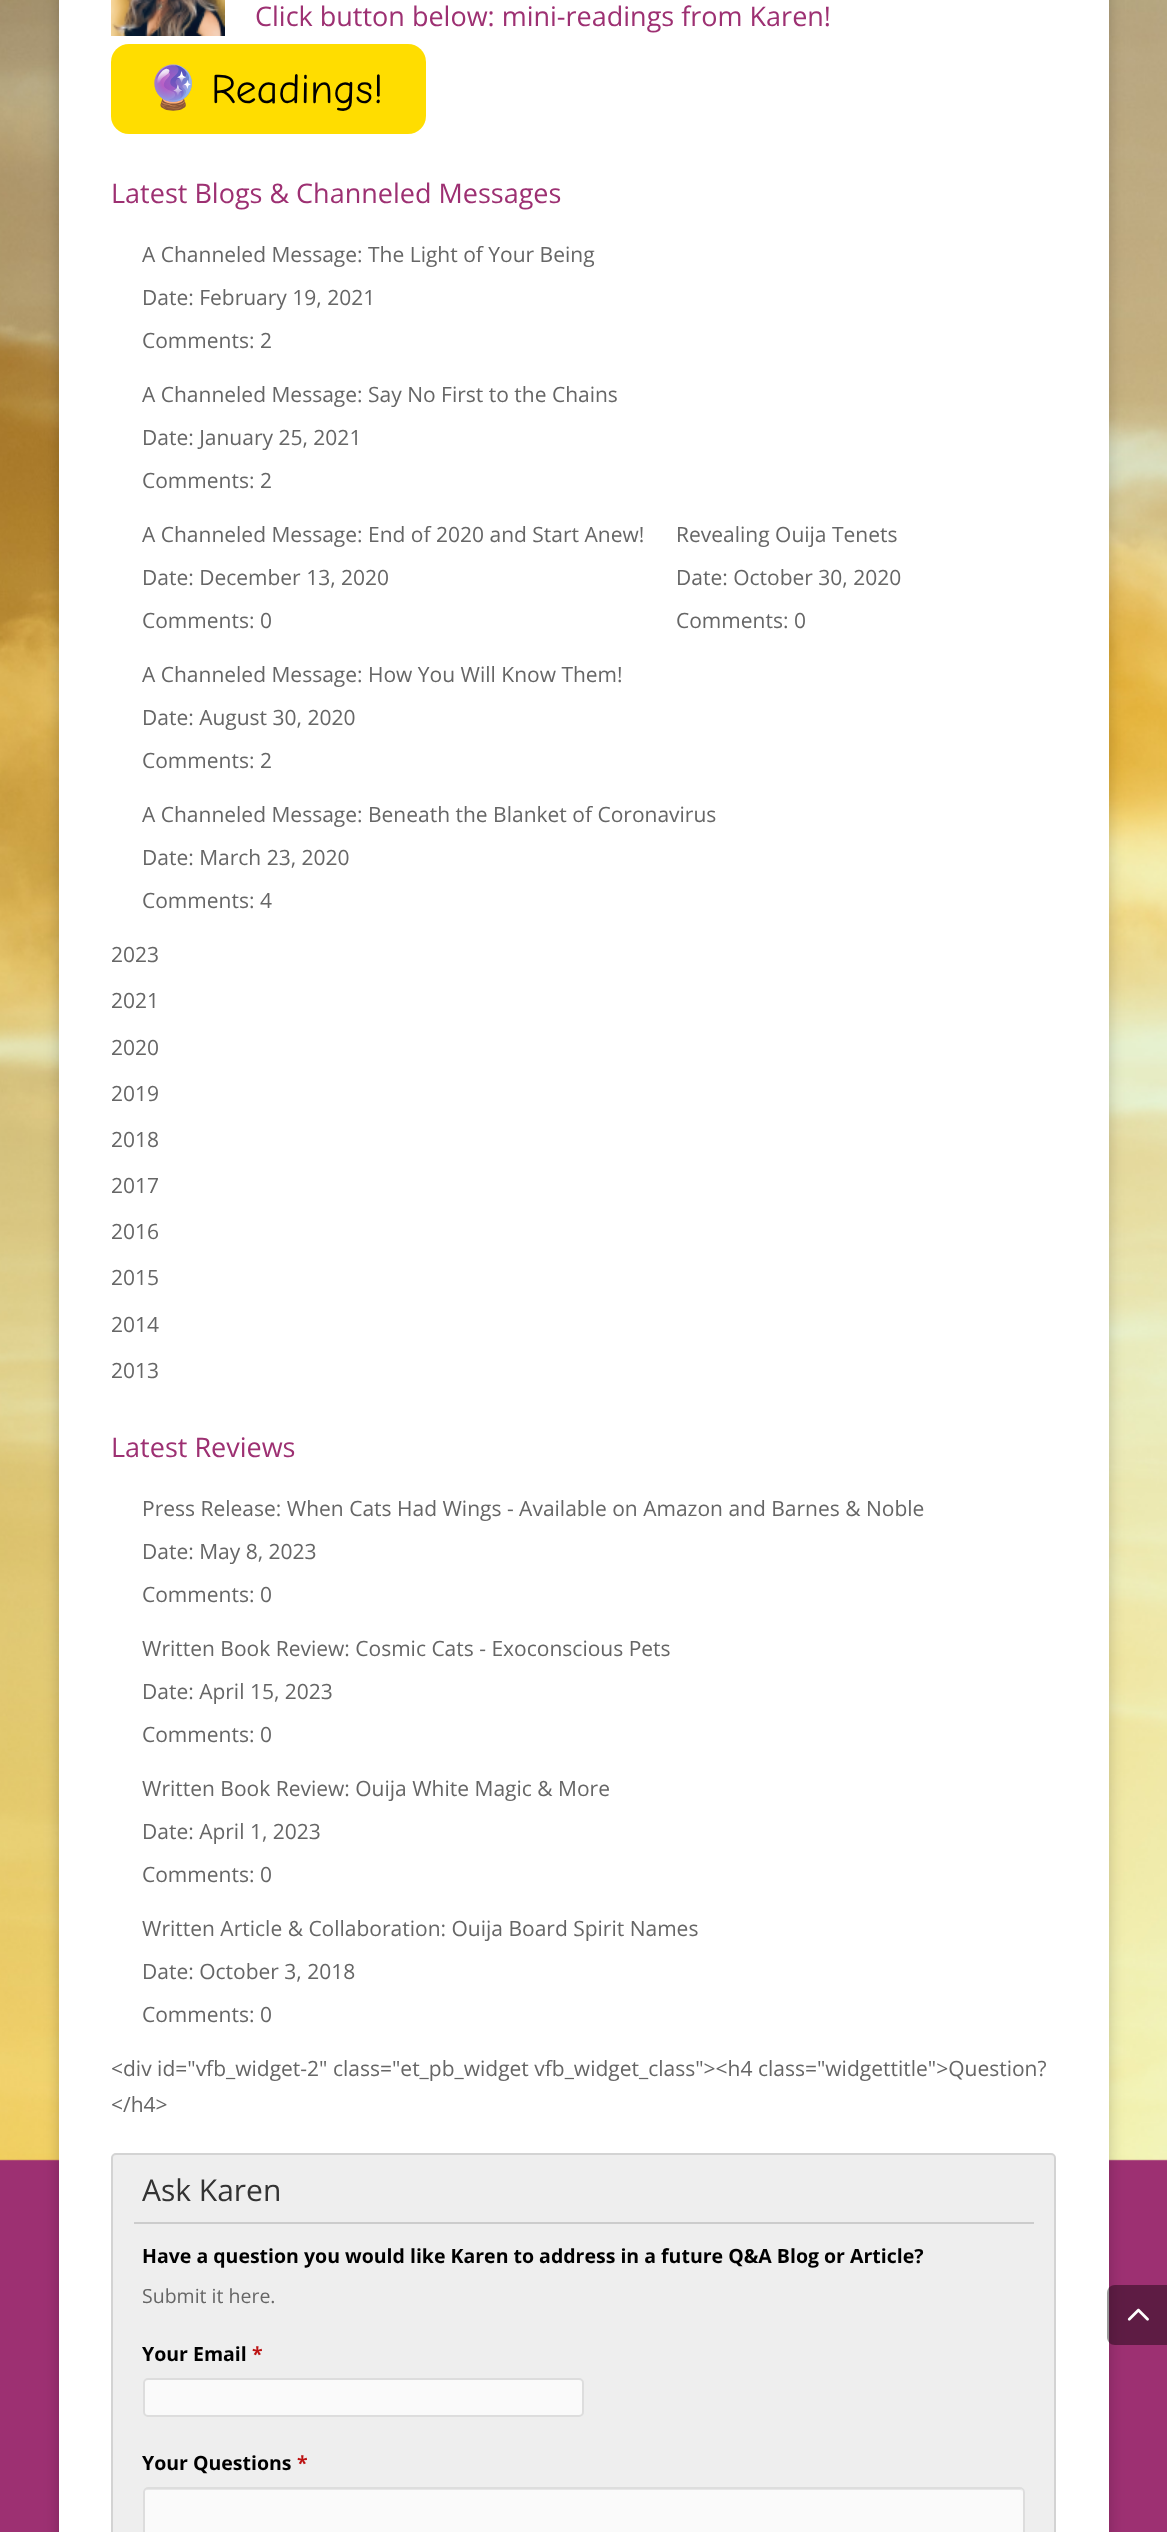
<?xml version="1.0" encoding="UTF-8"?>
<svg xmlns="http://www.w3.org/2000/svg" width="1167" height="2532">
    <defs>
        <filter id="blur1" x="-50%" y="-200%" width="200%" height="500%"><feGaussianBlur stdDeviation="7.5"/></filter>
    </defs>
    <rect width="100%" height="100%" fill="#9D3072"/>
    <image x="0" y="0" width="1167" height="2161" href="img_01.png"/>
    <rect x="59" y="-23" width="1050" height="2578" fill="#000000" fill-opacity="0.2" filter="url(#blur1)"/>
    <rect x="59" y="0" width="1050" height="2532" fill="#FFFFFF"/>
    <image x="111" y="0" width="114" height="36" href="img_02.png"/>
    <text x="255" y="26" font-family="Open Sans" font-size="27" fill="#9D3072">Click button below: mini-readings from Karen!</text>
    <rect x="111" y="44" width="315" height="90" rx="18" fill="#FFDD00"/>
    <text x="147" y="102" font-family="Noto Color Emoji" font-size="42" fill="#000000">🔮</text>
    <text x="211" y="103" font-family="Comic Neue" font-size="42" fill="#000000">Readings!</text>
    <text x="111" y="203" font-family="Open Sans" font-size="27" fill="#9D3072">Latest Blogs &amp; Channeled Messages</text>
    <text x="142" y="262" font-family="Open Sans" font-size="21" fill="#666666">A Channeled Message: The Light of Your Being</text>
    <text x="142" y="305" font-family="Open Sans" font-size="21" fill="#666666">Date: February 19, 2021</text>
    <text x="142" y="348" font-family="Open Sans" font-size="21" fill="#666666">Comments: 2</text>
    <text x="142" y="402" font-family="Open Sans" font-size="21" fill="#666666">A Channeled Message: Say No First to the Chains</text>
    <text x="142" y="445" font-family="Open Sans" font-size="21" fill="#666666">Date: January 25, 2021</text>
    <text x="142" y="488" font-family="Open Sans" font-size="21" fill="#666666">Comments: 2</text>
    <text x="142" y="542" font-family="Open Sans" font-size="21" fill="#666666">A Channeled Message: End of 2020 and Start Anew!</text>
    <text x="142" y="585" font-family="Open Sans" font-size="21" fill="#666666">Date: December 13, 2020</text>
    <text x="142" y="628" font-family="Open Sans" font-size="21" fill="#666666">Comments: 0</text>
    <text x="676" y="542" font-family="Open Sans" font-size="21" fill="#666666">Revealing Ouija Tenets</text>
    <text x="676" y="585" font-family="Open Sans" font-size="21" fill="#666666">Date: October 30, 2020</text>
    <text x="676" y="628" font-family="Open Sans" font-size="21" fill="#666666">Comments: 0</text>
    <text x="142" y="682" font-family="Open Sans" font-size="21" fill="#666666">A Channeled Message: How You Will Know Them!</text>
    <text x="142" y="725" font-family="Open Sans" font-size="21" fill="#666666">Date: August 30, 2020</text>
    <text x="142" y="768" font-family="Open Sans" font-size="21" fill="#666666">Comments: 2</text>
    <text x="142" y="822" font-family="Open Sans" font-size="21" fill="#666666">A Channeled Message: Beneath the Blanket of Coronavirus</text>
    <text x="142" y="865" font-family="Open Sans" font-size="21" fill="#666666">Date: March 23, 2020</text>
    <text x="142" y="908" font-family="Open Sans" font-size="21" fill="#666666">Comments: 4</text>
    <text x="111" y="962" font-family="Open Sans" font-size="21" fill="#666666">2023</text>
    <text x="111" y="1008" font-family="Open Sans" font-size="21" fill="#666666">2021</text>
    <text x="111" y="1055" font-family="Open Sans" font-size="21" fill="#666666">2020</text>
    <text x="111" y="1101" font-family="Open Sans" font-size="21" fill="#666666">2019</text>
    <text x="111" y="1147" font-family="Open Sans" font-size="21" fill="#666666">2018</text>
    <text x="111" y="1193" font-family="Open Sans" font-size="21" fill="#666666">2017</text>
    <text x="111" y="1239" font-family="Open Sans" font-size="21" fill="#666666">2016</text>
    <text x="111" y="1285" font-family="Open Sans" font-size="21" fill="#666666">2015</text>
    <text x="111" y="1332" font-family="Open Sans" font-size="21" fill="#666666">2014</text>
    <text x="111" y="1378" font-family="Open Sans" font-size="21" fill="#666666">2013</text>
    <text x="111" y="1457" font-family="Open Sans" font-size="27" fill="#9D3072">Latest Reviews</text>
    <text x="142" y="1516" font-family="Open Sans" font-size="21" fill="#666666">Press Release: When Cats Had Wings - Available on Amazon and Barnes &amp; Noble</text>
    <text x="142" y="1559" font-family="Open Sans" font-size="21" fill="#666666">Date: May 8, 2023</text>
    <text x="142" y="1602" font-family="Open Sans" font-size="21" fill="#666666">Comments: 0</text>
    <text x="142" y="1656" font-family="Open Sans" font-size="21" fill="#666666">Written Book Review: Cosmic Cats - Exoconscious Pets</text>
    <text x="142" y="1699" font-family="Open Sans" font-size="21" fill="#666666">Date: April 15, 2023</text>
    <text x="142" y="1742" font-family="Open Sans" font-size="21" fill="#666666">Comments: 0</text>
    <text x="142" y="1796" font-family="Open Sans" font-size="21" fill="#666666">Written Book Review: Ouija White Magic &amp; More</text>
    <text x="142" y="1839" font-family="Open Sans" font-size="21" fill="#666666">Date: April 1, 2023</text>
    <text x="142" y="1882" font-family="Open Sans" font-size="21" fill="#666666">Comments: 0</text>
    <text x="142" y="1936" font-family="Open Sans" font-size="21" fill="#666666">Written Article &amp; Collaboration: Ouija Board Spirit Names</text>
    <text x="142" y="1979" font-family="Open Sans" font-size="21" fill="#666666">Date: October 3, 2018</text>
    <text x="142" y="2022" font-family="Open Sans" font-size="21" fill="#666666">Comments: 0</text>
    <text font-family="Open Sans" font-size="21" fill="#666666">
        <tspan x="111" y="2076">&lt;div id="vfb_widget-2" class="et_pb_widget vfb_widget_class"&gt;&lt;h4 class="widgettitle"&gt;Question?</tspan>
        <tspan x="111" y="2112">&lt;/h4&gt;</tspan>
    </text>
    <rect x="112" y="2154" width="943" height="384" rx="4" fill="#EEEEEE" stroke="#D3D3D3" stroke-width="2"/>
    <rect x="134" y="2222" width="900" height="2" fill="#CCCCCC"/>
    <text x="142" y="2201" font-family="Open Sans" font-size="30" fill="#333333">Ask Karen</text>
    <text x="142" y="2263" font-family="Open Sans" font-size="19.5" font-weight="700" fill="#000000">Have a question you would like Karen to address in a future Q&amp;A Blog or Article?</text>
    <text x="142" y="2303" font-family="Open Sans" font-size="19.5" fill="#666666">Submit it here.</text>
    <text x="142" y="2361" font-family="Open Sans" font-size="19.5" font-weight="700" fill="#000000">Your Email</text>
    <text x="252" y="2361" font-family="Open Sans" font-size="19.5" font-weight="700" fill="#BC1212">*</text>
    <rect x="144" y="2379" width="439" height="37" rx="4" fill="#FAFAFA" stroke="#DDDDDD" stroke-width="2"/>
    <text x="142" y="2470" font-family="Open Sans" font-size="19.5" font-weight="700" fill="#000000">Your Questions</text>
    <text x="297" y="2470" font-family="Open Sans" font-size="19.5" font-weight="700" fill="#BC1212">*</text>
    <rect x="143" y="2487" width="882" height="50" rx="5" fill="#FAFAFA"/>
    <path d="M 147 2490 H 1020 C 1022 2490 1023 2491 1023 2493 C 1023 2491 1022 2489 1020 2489 H 147 C 145 2489 144 2491 144 2493 C 144 2491 145 2490 147 2490 Z" fill="#E7E7E7"/>
    <rect x="144" y="2488" width="880" height="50" rx="4" fill="none" stroke="#DDDDDD" stroke-width="2"/>
    <path d="M 1115 2285 H 1167 V 2345 H 1115 C 1110.5 2345 1107 2341.5 1107 2337 V 2293 C 1107 2288.5 1110.5 2285 1115 2285 Z" fill="#000000" fill-opacity="0.4"/>
    <image x="1127" y="2308" width="22" height="13" href="img_03.png"/>
</svg>
